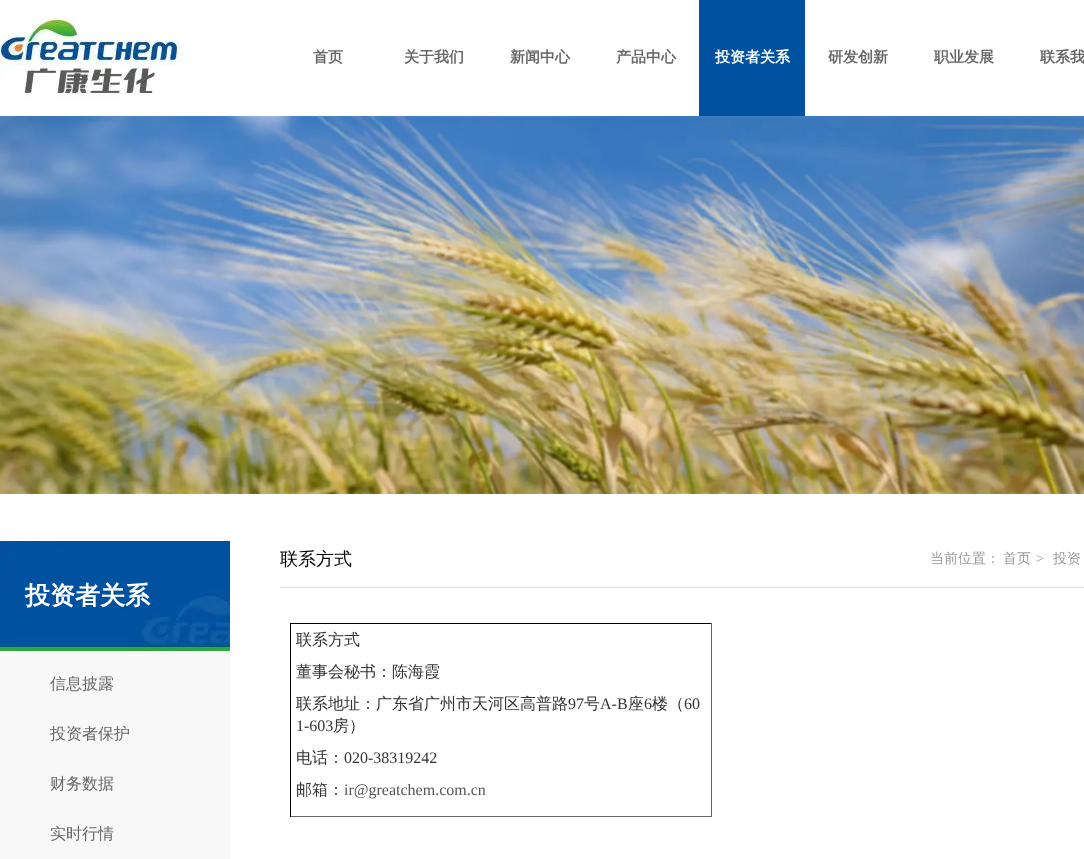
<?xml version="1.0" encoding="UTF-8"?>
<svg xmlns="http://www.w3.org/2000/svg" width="1084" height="859">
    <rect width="100%" height="100%" fill="#FFFFFF"/>
    <image x="0" y="17" width="180" height="80" href="img_01.png"/>
    <text x="313" y="62" font-family="WenQuanYi Zen Hei" font-size="15" font-weight="700" fill="#666666">首页</text>
    <text x="404" y="62" font-family="WenQuanYi Zen Hei" font-size="15" font-weight="700" fill="#666666">关于我们</text>
    <text x="510" y="62" font-family="WenQuanYi Zen Hei" font-size="15" font-weight="700" fill="#666666">新闻中心</text>
    <text x="616" y="62" font-family="WenQuanYi Zen Hei" font-size="15" font-weight="700" fill="#666666">产品中心</text>
    <rect x="699" y="0" width="106" height="116" fill="#00519F"/>
    <text x="715" y="62" font-family="WenQuanYi Zen Hei" font-size="15" font-weight="700" fill="#FFFFFF">投资者关系</text>
    <text x="828" y="62" font-family="WenQuanYi Zen Hei" font-size="15" font-weight="700" fill="#666666">研发创新</text>
    <text x="934" y="62" font-family="WenQuanYi Zen Hei" font-size="15" font-weight="700" fill="#666666">职业发展</text>
    <text x="1040" y="62" font-family="WenQuanYi Zen Hei" font-size="15" font-weight="700" fill="#666666">联系我</text>
    <image x="0" y="116" width="1084" height="378" href="img_02.png"/>
    <image x="0" y="541" width="230" height="110" href="img_03.png"/>
    <text x="25" y="604" font-family="WenQuanYi Zen Hei" font-size="25" font-weight="700" fill="#FFFFFF">投资者关系</text>
    <rect x="0" y="651" width="230" height="208" fill="#F8F8F8"/>
    <text x="50" y="689" font-family="WenQuanYi Zen Hei" font-size="16" font-weight="500" fill="#666666">信息披露</text>
    <text x="50" y="739" font-family="WenQuanYi Zen Hei" font-size="16" font-weight="500" fill="#666666">投资者保护</text>
    <text x="50" y="789" font-family="WenQuanYi Zen Hei" font-size="16" font-weight="500" fill="#666666">财务数据</text>
    <text x="50" y="839" font-family="WenQuanYi Zen Hei" font-size="16" font-weight="500" fill="#666666">实时行情</text>
    <rect x="280" y="587" width="804" height="1" fill="#E2E2E2"/>
    <text x="280" y="565" font-family="WenQuanYi Zen Hei" font-size="18" font-weight="500" fill="#000000">联系方式</text>
    <text x="930" y="563" font-family="WenQuanYi Zen Hei" font-size="14" font-weight="500" fill="#999999">当前位置：</text>
    <text x="1003" y="563" font-family="WenQuanYi Zen Hei" font-size="14" font-weight="500" fill="#999999">首页</text>
    <text x="1036" y="563" font-family="Liberation Serif" font-size="14" fill="#999999">&gt;</text>
    <text x="1053" y="563" font-family="WenQuanYi Zen Hei" font-size="14" font-weight="500" fill="#999999">投资</text>
    <rect x="290" y="623" width="422" height="1" fill="#000000"/>
    <rect x="711" y="623" width="1" height="194" fill="#666666"/>
    <rect x="290" y="816" width="422" height="1" fill="#666666"/>
    <rect x="290" y="623" width="1" height="194" fill="#000000"/>
    <text x="296" y="645" font-family="WenQuanYi Zen Hei" font-size="16" font-weight="500" fill="#333333">联系方式</text>
    <text x="296" y="677" font-family="WenQuanYi Zen Hei" font-size="16" font-weight="500" fill="#333333">董事会秘书：陈海霞</text>
    <text x="296" y="709" font-family="WenQuanYi Zen Hei" font-size="16" font-weight="500" fill="#333333">联系地址：广东省广州市天河区高普路</text>
    <text x="568" y="709" font-family="Liberation Serif" font-size="16" fill="#333333">97</text>
    <text x="584" y="709" font-family="WenQuanYi Zen Hei" font-size="16" font-weight="500" fill="#333333">号</text>
    <text x="600" y="709" font-family="Liberation Serif" font-size="16" fill="#333333">A-B</text>
    <text x="628" y="709" font-family="WenQuanYi Zen Hei" font-size="16" font-weight="500" fill="#333333">座</text>
    <text x="644" y="709" font-family="Liberation Serif" font-size="16" fill="#333333">6</text>
    <text x="652" y="709" font-family="WenQuanYi Zen Hei" font-size="16" font-weight="500" fill="#333333">楼（</text>
    <text x="684" y="709" font-family="Liberation Serif" font-size="16" fill="#333333">60</text>
    <text x="296" y="731" font-family="Liberation Serif" font-size="16" fill="#333333">1-603</text>
    <text x="333" y="731" font-family="WenQuanYi Zen Hei" font-size="16" font-weight="500" fill="#333333">房）</text>
    <text x="296" y="763" font-family="WenQuanYi Zen Hei" font-size="16" font-weight="500" fill="#333333">电话：</text>
    <text x="344" y="763" font-family="Liberation Serif" font-size="16" fill="#333333">020-38319242</text>
    <text x="296" y="795" font-family="WenQuanYi Zen Hei" font-size="16" font-weight="500" fill="#333333">邮箱：</text>
    <text x="344" y="795" font-family="Liberation Serif" font-size="16" fill="#555555">ir@greatchem.com.cn</text>
</svg>
